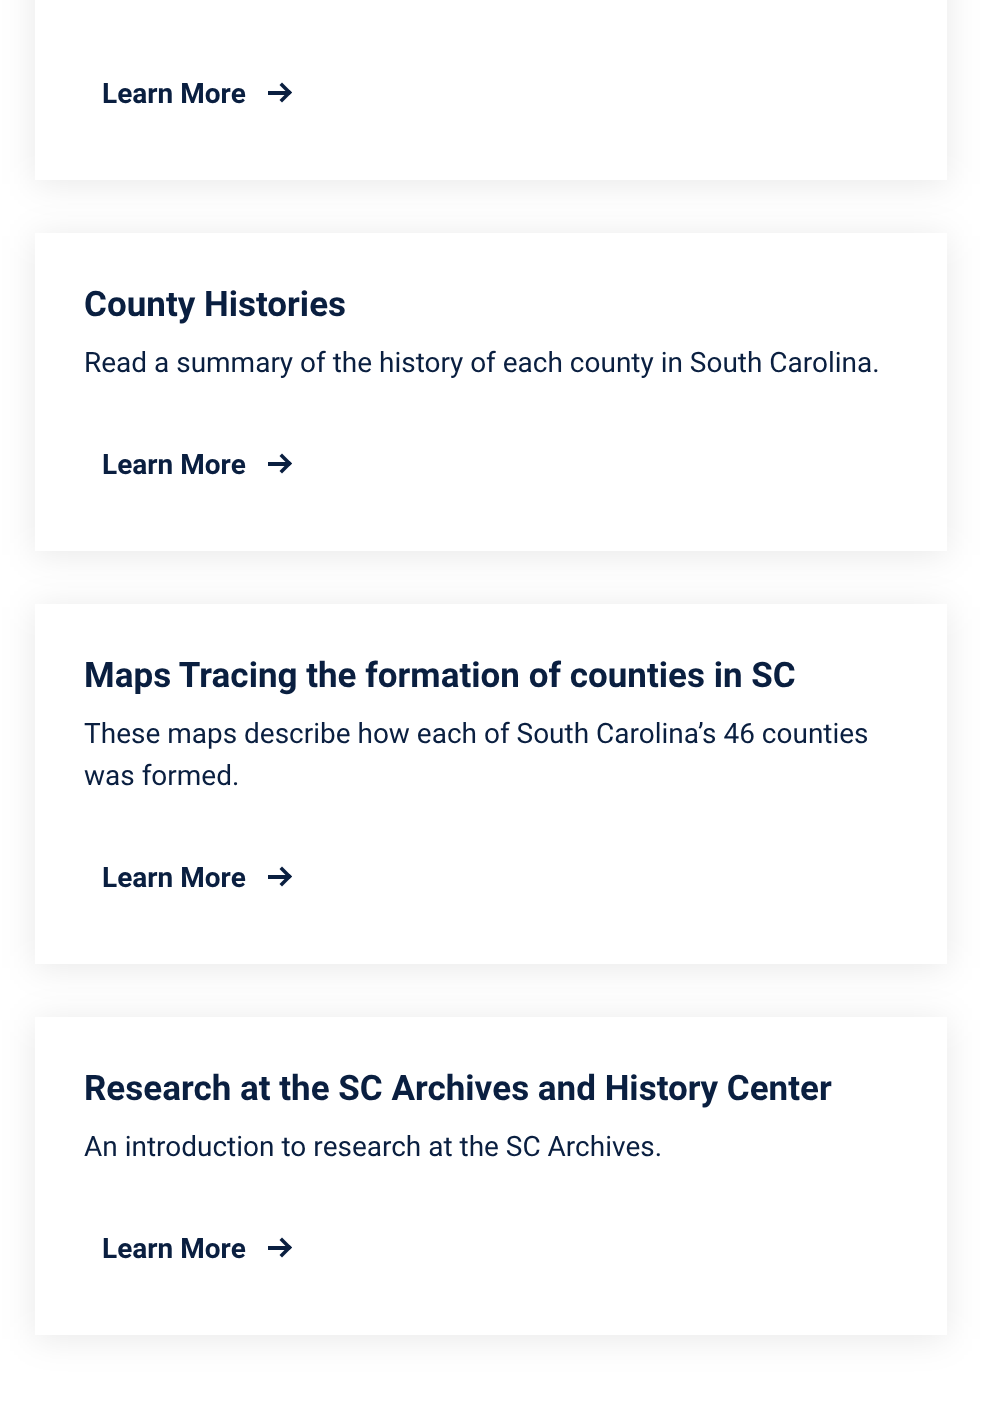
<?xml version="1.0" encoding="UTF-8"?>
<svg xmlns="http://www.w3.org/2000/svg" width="981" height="1412">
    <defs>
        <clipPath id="clip1"><path d="M 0 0 H 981 V 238 H 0 Z M 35 -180 H 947 V 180 H 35 Z" clip-rule="evenodd"/></clipPath>
        <filter id="blur1" x="-50%" y="-200%" width="200%" height="500%"><feGaussianBlur stdDeviation="17.5"/></filter>
        <clipPath id="clip2"><path d="M 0 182 H 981 V 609 H 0 Z M 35 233 H 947 V 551 H 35 Z" clip-rule="evenodd"/></clipPath>
        <clipPath id="clip3"><path d="M 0 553 H 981 V 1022 H 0 Z M 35 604 H 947 V 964 H 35 Z" clip-rule="evenodd"/></clipPath>
        <clipPath id="clip4"><path d="M 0 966 H 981 V 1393 H 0 Z M 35 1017 H 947 V 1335 H 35 Z" clip-rule="evenodd"/></clipPath>
    </defs>
    <rect width="100%" height="100%" fill="#FFFFFF"/>
    <g clip-path="url(#clip1)">
        <rect x="35" y="-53" width="912" height="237" fill="#000000" fill-opacity="0.09" filter="url(#blur1)"/>
    </g>
    <text x="102" y="103" font-family="Roboto" font-size="28" font-weight="700" fill="#0A1F40">Learn More</text>
    <path d="M 282 82.5 L 292 92.5 L 289.5 95 L 279.5 85 Z" fill="#0A1F40"/>
    <path d="M 289.5 90 L 292 92.5 L 282 102.5 L 279.5 100 Z" fill="#0A1F40"/>
    <rect x="268" y="91" width="21" height="4" fill="#0A1F40"/>
    <g clip-path="url(#clip2)">
        <rect x="35" y="236" width="912" height="319" fill="#000000" fill-opacity="0.09" filter="url(#blur1)"/>
    </g>
    <text x="84" y="316" font-family="Roboto" font-size="35" font-weight="700" fill="#0A1F40">County Histories</text>
    <text x="84" y="372" font-family="Roboto" font-size="28" fill="#0A1F40">Read a summary of the history of each county in South Carolina.</text>
    <text x="102" y="474" font-family="Roboto" font-size="28" font-weight="700" fill="#0A1F40">Learn More</text>
    <path d="M 282 453.5 L 292 463.5 L 289.5 466 L 279.5 456 Z" fill="#0A1F40"/>
    <path d="M 289.5 461 L 292 463.5 L 282 473.5 L 279.5 471 Z" fill="#0A1F40"/>
    <rect x="268" y="462" width="21" height="4" fill="#0A1F40"/>
    <g clip-path="url(#clip3)">
        <rect x="35" y="607" width="912" height="361" fill="#000000" fill-opacity="0.09" filter="url(#blur1)"/>
    </g>
    <text x="84" y="687" font-family="Roboto" font-size="35" font-weight="700" fill="#0A1F40">Maps Tracing the formation of counties in SC</text>
    <text font-family="Roboto" font-size="28" fill="#0A1F40">
        <tspan x="84" y="743">These maps describe how each of South Carolina’s 46 counties</tspan>
        <tspan x="84" y="785">was formed.</tspan>
    </text>
    <text x="102" y="887" font-family="Roboto" font-size="28" font-weight="700" fill="#0A1F40">Learn More</text>
    <path d="M 282 866.5 L 292 876.5 L 289.5 879 L 279.5 869 Z" fill="#0A1F40"/>
    <path d="M 289.5 874 L 292 876.5 L 282 886.5 L 279.5 884 Z" fill="#0A1F40"/>
    <rect x="268" y="875" width="21" height="4" fill="#0A1F40"/>
    <g clip-path="url(#clip4)">
        <rect x="35" y="1020" width="912" height="319" fill="#000000" fill-opacity="0.09" filter="url(#blur1)"/>
    </g>
    <text x="84" y="1100" font-family="Roboto" font-size="35" font-weight="700" fill="#0A1F40">Research at the SC Archives and History Center</text>
    <text x="84" y="1156" font-family="Roboto" font-size="28" fill="#0A1F40">An introduction to research at the SC Archives.</text>
    <text x="102" y="1258" font-family="Roboto" font-size="28" font-weight="700" fill="#0A1F40">Learn More</text>
    <path d="M 282 1237.5 L 292 1247.5 L 289.5 1250 L 279.5 1240 Z" fill="#0A1F40"/>
    <path d="M 289.5 1245 L 292 1247.5 L 282 1257.5 L 279.5 1255 Z" fill="#0A1F40"/>
    <rect x="268" y="1246" width="21" height="4" fill="#0A1F40"/>
</svg>
